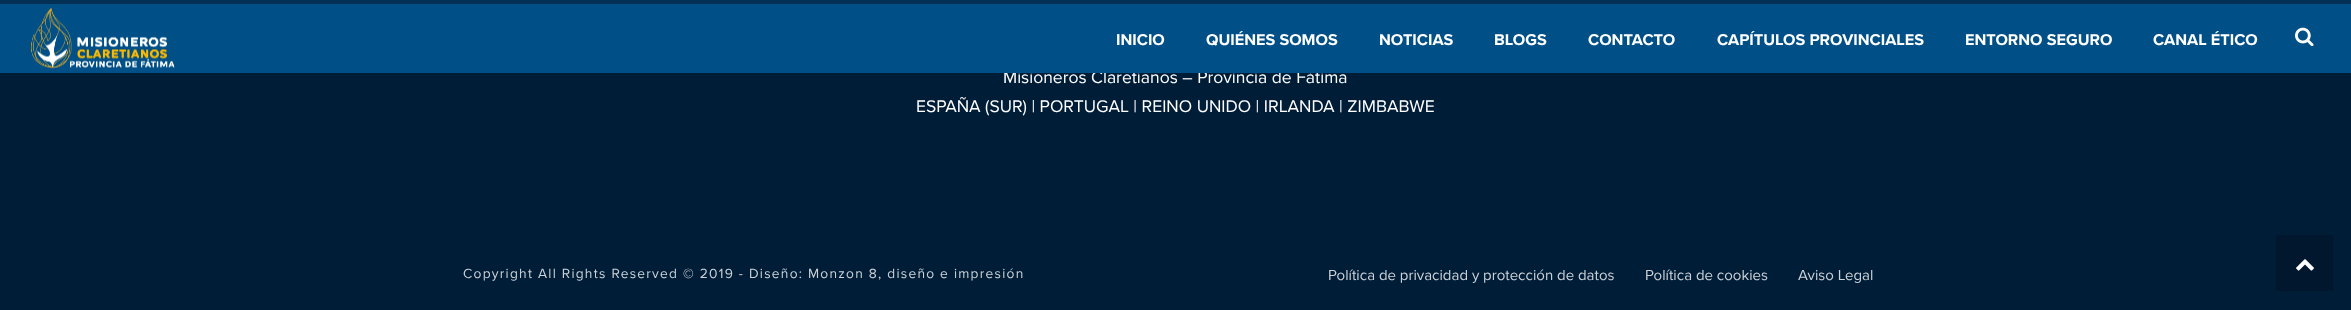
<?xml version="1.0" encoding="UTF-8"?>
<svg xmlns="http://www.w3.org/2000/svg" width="2351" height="310">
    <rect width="100%" height="100%" fill="#001D38"/>
    <rect x="0" y="0" width="2351" height="4" fill="#023155"/>
    <text x="1003" y="83" font-family="Proxima Nova" font-size="17.5" fill="#FFFFFF">Misioneros Claretianos – Provincia de Fátima</text>
    <rect x="0" y="4" width="2351" height="69" fill="#004F86"/>
    <image x="31" y="7" width="144" height="62" href="img_01.png"/>
    <text x="1116" y="45" font-family="Proxima Nova" font-size="16.25" font-weight="700" fill="#FFFFFF">INICIO</text>
    <text x="1206" y="45" font-family="Proxima Nova" font-size="16.25" font-weight="700" fill="#FFFFFF">QUIÉNES SOMOS</text>
    <text x="1379" y="45" font-family="Proxima Nova" font-size="16.25" font-weight="700" fill="#FFFFFF">NOTICIAS</text>
    <text x="1494" y="45" font-family="Proxima Nova" font-size="16.25" font-weight="700" fill="#FFFFFF">BLOGS</text>
    <text x="1588" y="45" font-family="Proxima Nova" font-size="16.25" font-weight="700" fill="#FFFFFF">CONTACTO</text>
    <text x="1717" y="45" font-family="Proxima Nova" font-size="16.25" font-weight="700" fill="#FFFFFF">CAPÍTULOS PROVINCIALES</text>
    <text x="1965" y="45" font-family="Proxima Nova" font-size="16.25" font-weight="700" fill="#FFFFFF">ENTORNO SEGURO</text>
    <text x="2153" y="45" font-family="Proxima Nova" font-size="16.25" font-weight="700" fill="#FFFFFF">CANAL ÉTICO</text>
    <image x="2295" y="27" width="19" height="19" href="img_02.png"/>
    <text x="916" y="112" font-family="Proxima Nova" font-size="17.5" fill="#FFFFFF">ESPAÑA (SUR) | PORTUGAL | REINO UNIDO | IRLANDA | ZIMBABWE</text>
    <text x="463" y="278" font-family="Proxima Nova" font-size="13.75" letter-spacing="1.25" fill="#CCD2D7">Copyright All Rights Reserved © 2019 - Diseño: Monzon 8, diseño e impresión</text>
    <text x="1328" y="280" font-family="Proxima Nova" font-size="15" fill="#CCD2D7">Política de privacidad y protección de datos</text>
    <text x="1645" y="280" font-family="Proxima Nova" font-size="15" fill="#CCD2D7">Política de cookies</text>
    <text x="1798" y="280" font-family="Proxima Nova" font-size="15" fill="#CCD2D7">Aviso Legal</text>
    <rect x="2276" y="235" width="57" height="56" fill="#00172D"/>
    <image x="2296" y="259" width="18" height="12" href="img_03.png"/>
</svg>
